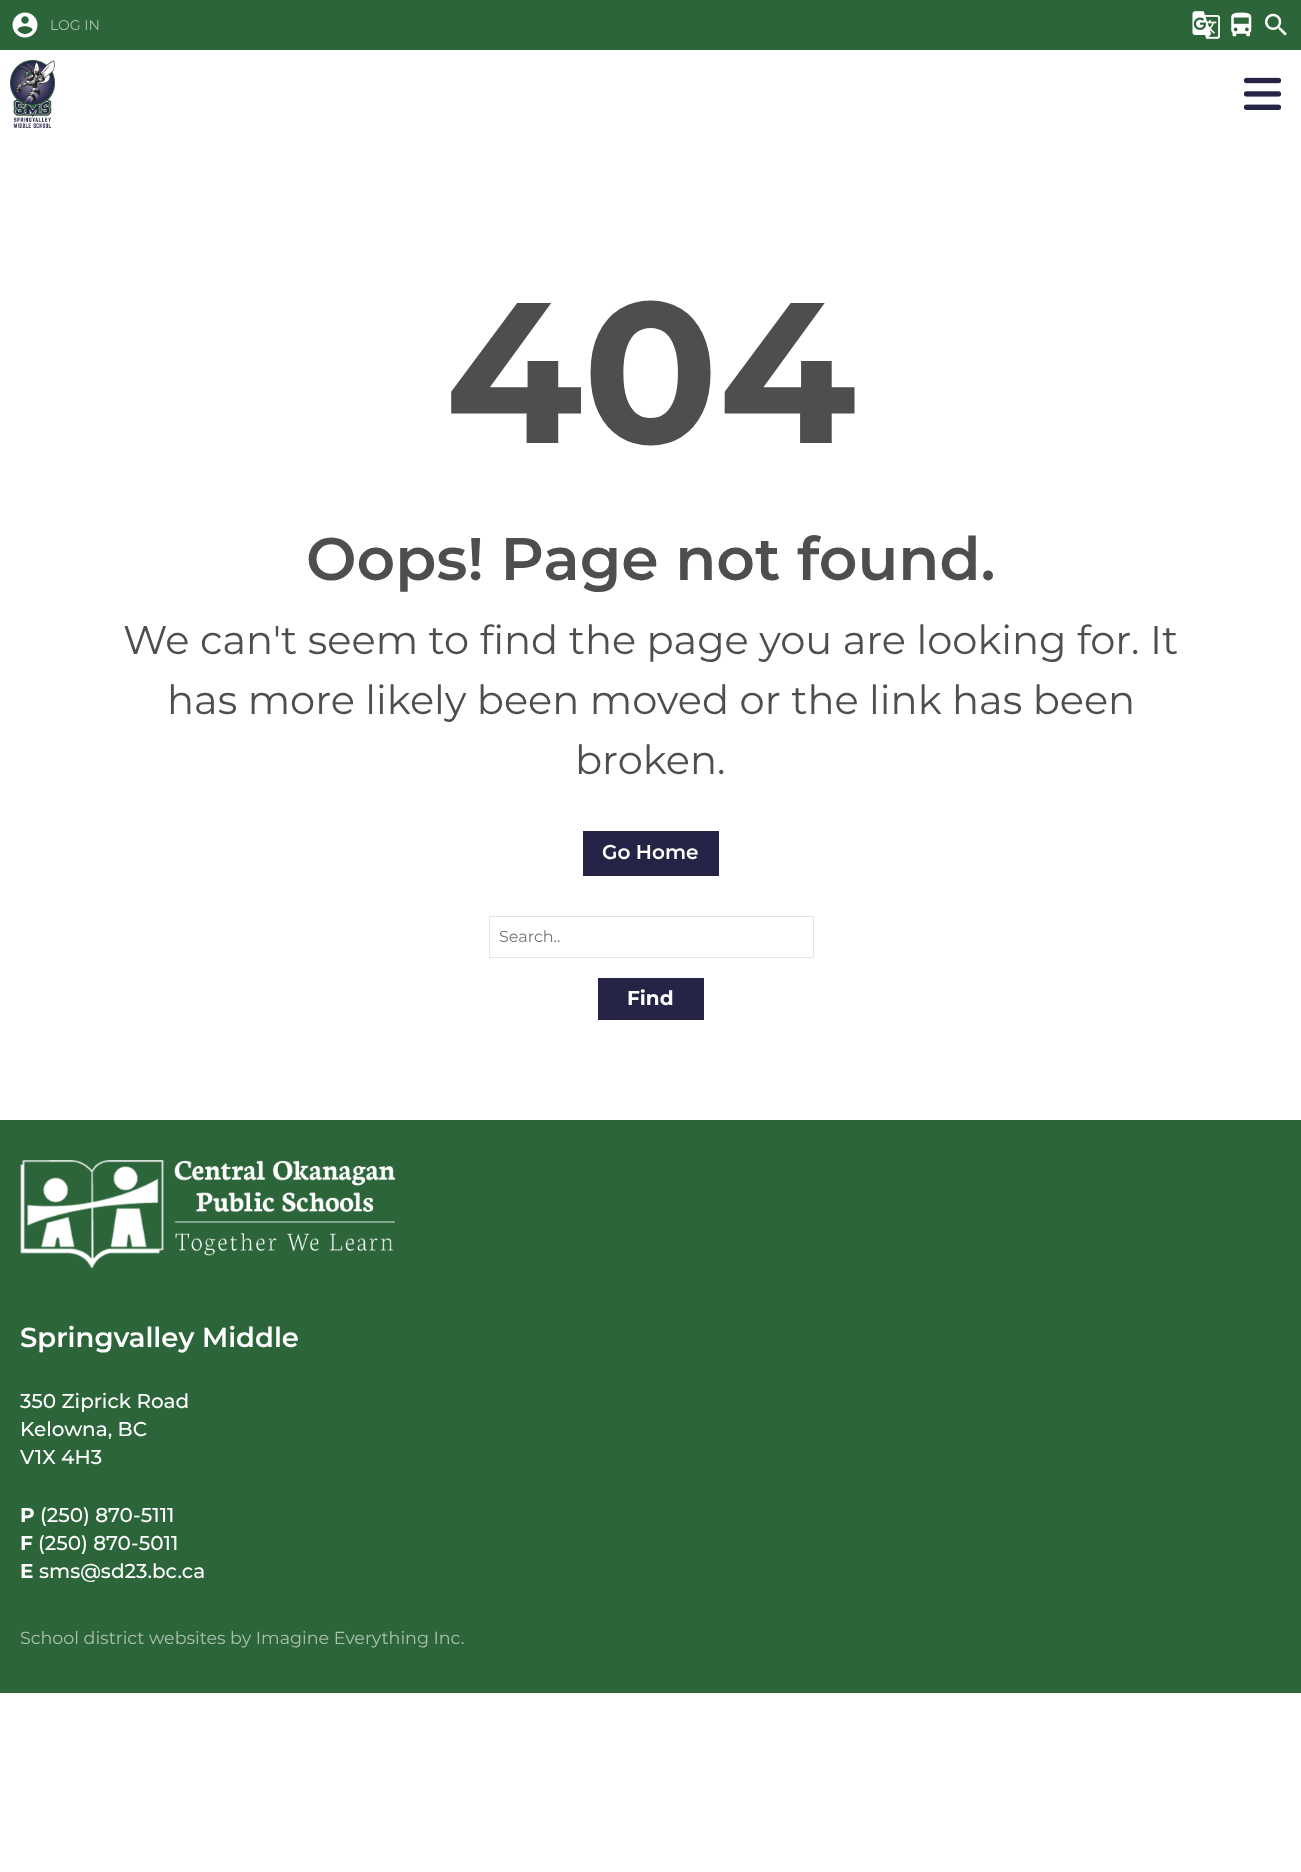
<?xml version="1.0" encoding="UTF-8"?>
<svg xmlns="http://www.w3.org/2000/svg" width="1301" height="1872">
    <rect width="100%" height="100%" fill="#FFFFFF"/>
    <rect x="0" y="0" width="1301" height="50" fill="#2C653A"/>
    <image x="12" y="12" width="26" height="26" href="img_01.png"/>
    <text x="50" y="30" font-family="Montserrat" font-size="14" fill="#ABC1B0">LOG IN</text>
    <image x="1192" y="11" width="28" height="28" href="img_02.png"/>
    <image x="1231" y="12" width="21" height="25" href="img_03.png"/>
    <image x="1265" y="13" width="22" height="23" href="img_04.png"/>
    <image x="10" y="60" width="45" height="68" href="img_05.png"/>
    <image x="1244" y="77" width="37" height="33" href="img_06.png"/>
    <text x="445" y="443" font-family="Montserrat" font-size="200" font-weight="700" fill="#4E4E4E">404</text>
    <text x="306" y="580" font-family="Montserrat" font-size="60" font-weight="600" fill="#4E4E4E">Oops! Page not found.</text>
    <text x="123" y="654" font-family="Montserrat" font-size="40" fill="#4E4E4E">We can't seem to find the page you are looking for. It</text>
    <text x="167" y="714" font-family="Montserrat" font-size="40" fill="#4E4E4E">has more likely been moved or the link has been</text>
    <text x="575" y="774" font-family="Montserrat" font-size="40" fill="#4E4E4E">broken.</text>
    <rect x="583" y="831" width="136" height="45" fill="#252446"/>
    <text x="602" y="859" font-family="Montserrat" font-size="20" font-weight="600" fill="#FFFFFF">Go Home</text>
    <rect x="489.5" y="916.5" width="324" height="41" fill="none" stroke="#E4E4E4"/>
    <text x="499" y="942" font-family="Montserrat" font-size="16" fill="#757575">Search..</text>
    <rect x="598" y="978" width="106" height="42" fill="#252446"/>
    <text x="627" y="1005" font-family="Montserrat" font-size="20" font-weight="700" fill="#FFFFFF">Find</text>
    <rect x="0" y="1120" width="1301" height="573" fill="#2C653A"/>
    <image x="20" y="1160" width="375" height="109" href="img_07.png"/>
    <text x="20" y="1347" font-family="Montserrat" font-size="27.5" font-weight="600" fill="#FFFFFF">Springvalley Middle</text>
    <text font-family="Montserrat" font-size="20" font-weight="500" fill="#FFFFFF">
        <tspan x="20" y="1408">350 Ziprick Road</tspan>
        <tspan x="20" y="1436">Kelowna, BC</tspan>
        <tspan x="20" y="1464">V1X 4H3</tspan>
    </text>
    <text x="20" y="1522" font-family="Montserrat" font-size="20" font-weight="700" fill="#FFFFFF">P</text>
    <text x="40" y="1522" font-family="Montserrat" font-size="20" font-weight="500" fill="#FFFFFF">(250) 870-5111</text>
    <text x="20" y="1550" font-family="Montserrat" font-size="20" font-weight="700" fill="#FFFFFF">F</text>
    <text x="38" y="1550" font-family="Montserrat" font-size="20" font-weight="500" fill="#FFFFFF">(250) 870-5011</text>
    <text x="20" y="1578" font-family="Montserrat" font-size="20" font-weight="700" fill="#FFFFFF">E</text>
    <text x="39" y="1578" font-family="Montserrat" font-size="20" font-weight="500" fill="#FFFFFF">sms@sd23.bc.ca</text>
    <text x="20" y="1644" font-family="Montserrat" font-size="17.5" fill="#ABC1B0">School district websites by Imagine Everything Inc.</text>
</svg>
